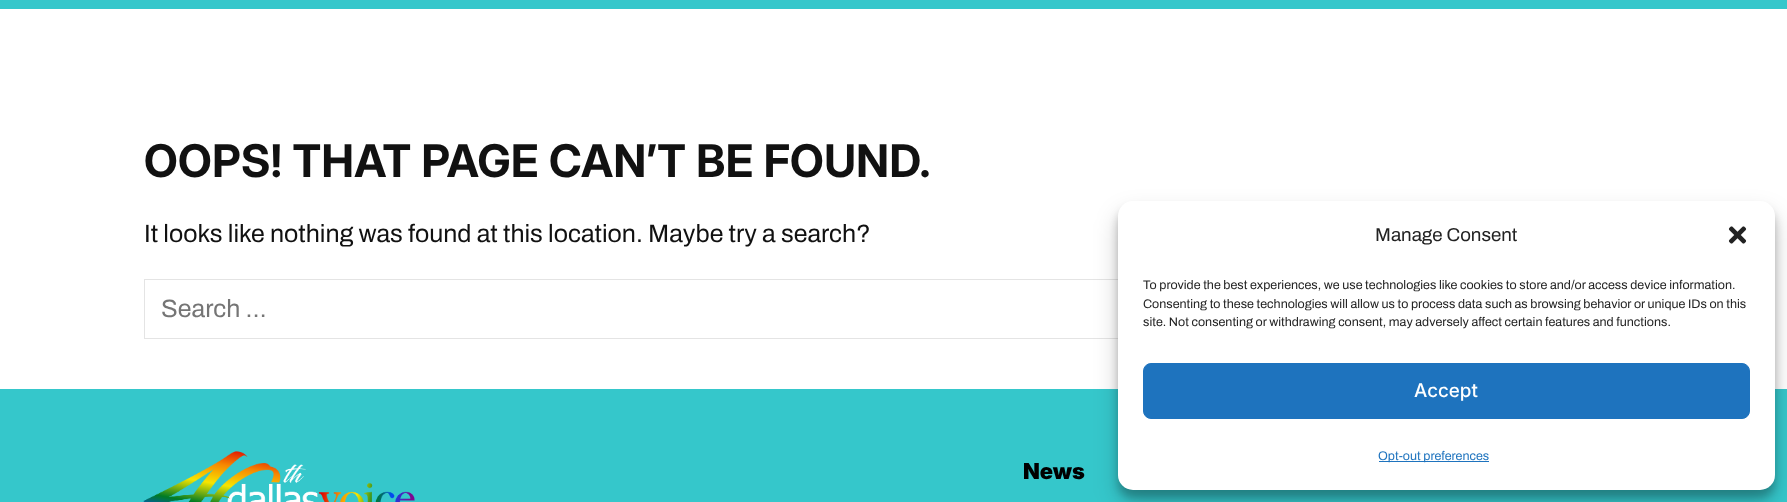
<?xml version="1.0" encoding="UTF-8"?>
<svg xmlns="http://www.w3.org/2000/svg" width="1787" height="502">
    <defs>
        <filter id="blur1" x="-50%" y="-200%" width="200%" height="500%"><feGaussianBlur stdDeviation="4"/></filter>
        <filter id="blur2" x="-50%" y="-200%" width="200%" height="500%"><feGaussianBlur stdDeviation="12.5"/></filter>
    </defs>
    <rect width="100%" height="100%" fill="#FFFFFF"/>
    <rect x="0" y="0" width="1787" height="9" fill="#35C7CB"/>
    <text x="144" y="177" font-family="Inter" font-size="45" font-weight="700" letter-spacing="0.45" fill="#111111">OOPS! THAT PAGE CAN’T BE FOUND.</text>
    <text x="144" y="242" font-family="Archivo" font-size="25" fill="#111111">It looks like nothing was found at this location. Maybe try a search?</text>
    <rect x="144.5" y="279.5" width="1499" height="59" fill="none" stroke="#E4E4E4"/>
    <text x="161" y="317" font-family="Archivo" font-size="25" fill="#757575">Search …</text>
    <rect x="0" y="389" width="1787" height="113" fill="#35C7CB"/>
    <image x="143" y="451" width="272" height="51" href="img_01.png"/>
    <text x="1023" y="479" font-family="Inter" font-size="22" font-weight="900" fill="#000000">News</text>
    <rect x="1118" y="209" width="657" height="289" rx="15" fill="#000000" fill-opacity="0.23" filter="url(#blur1)"/>
    <rect x="1118" y="214" width="657" height="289" rx="15" fill="#000000" fill-opacity="0.19" filter="url(#blur2)"/>
    <rect x="1118" y="201" width="657" height="289" rx="15" fill="#FFFFFF"/>
    <text x="1375" y="241" font-family="Archivo" font-size="18.75" fill="#222222">Manage Consent</text>
    <image x="1728" y="226" width="19" height="18" href="img_02.png"/>
    <text font-family="Archivo" font-size="12.5" fill="#222222">
        <tspan x="1143" y="289">To provide the best experiences, we use technologies like cookies to store and/or access device information.</tspan>
        <tspan x="1143" y="308">Consenting to these technologies will allow us to process data such as browsing behavior or unique IDs on this</tspan>
        <tspan x="1143" y="326">site. Not consenting or withdrawing consent, may adversely affect certain features and functions.</tspan>
    </text>
    <rect x="1143.5" y="363.5" width="606" height="55" rx="7.5" fill="#1E73BE" stroke="#1E73BE"/>
    <text x="1414" y="397" font-family="Inter" font-size="18.75" font-weight="500" fill="#FFFFFF">Accept</text>
    <rect x="1379" y="461" width="110" height="1" fill="#1E73BE"/>
    <text x="1378" y="460" font-family="Archivo" font-size="12.5" fill="#1E73BE">Opt-out preferences</text>
</svg>
